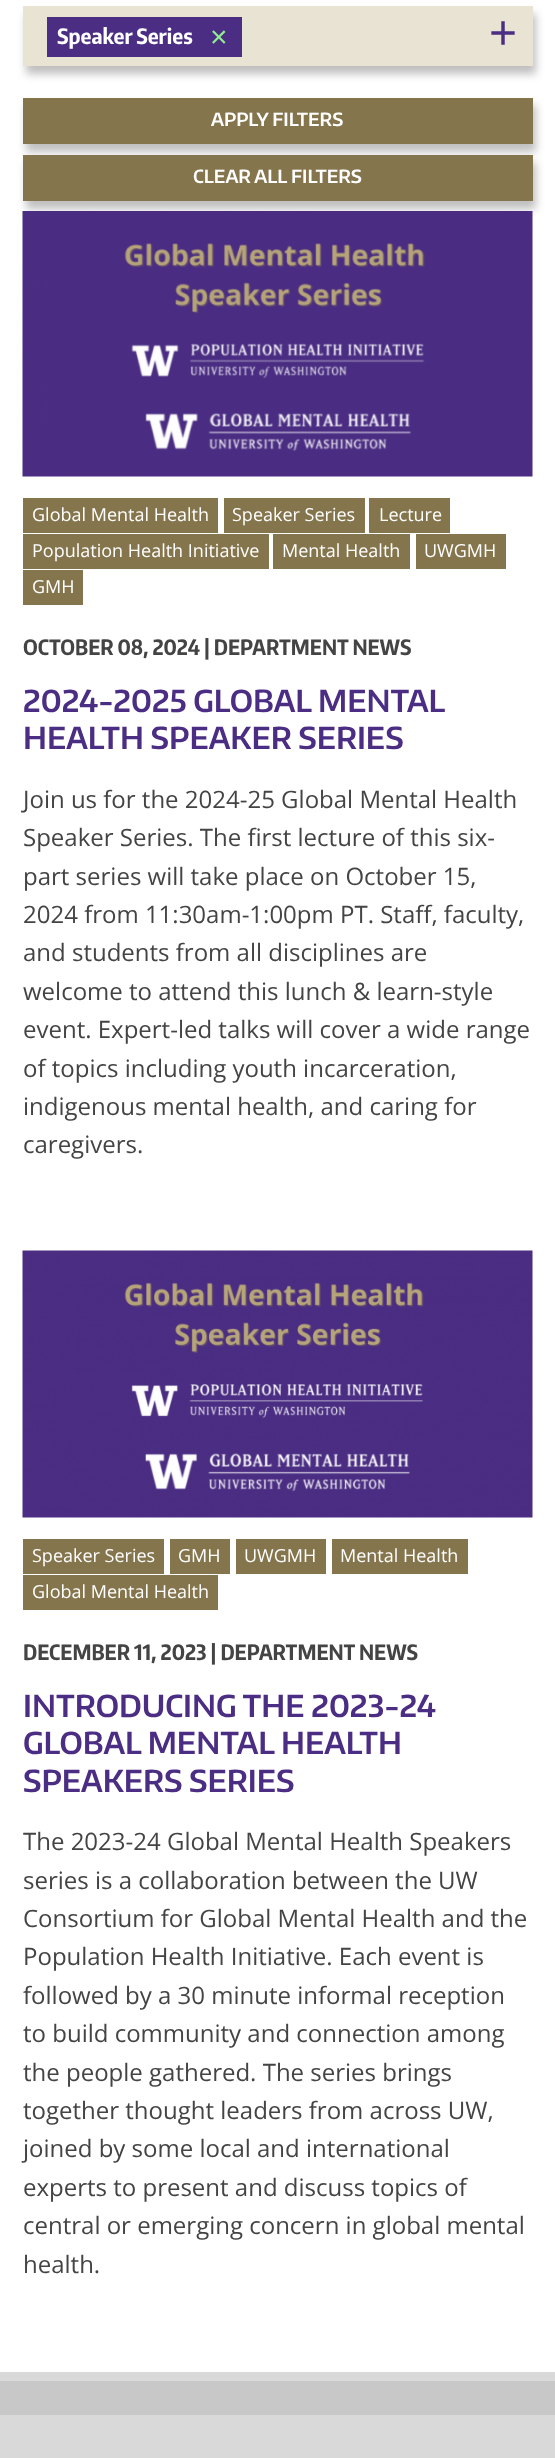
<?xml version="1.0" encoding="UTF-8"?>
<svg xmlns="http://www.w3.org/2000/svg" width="555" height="2458">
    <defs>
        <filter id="blur1" x="-50%" y="-200%" width="200%" height="500%"><feGaussianBlur stdDeviation="4"/></filter>
    </defs>
    <rect width="100%" height="100%" fill="#FFFFFF"/>
    <rect x="26" y="14" width="510" height="60" fill="#000000" fill-opacity="0.25" filter="url(#blur1)"/>
    <rect x="23" y="6" width="510" height="60" fill="#E8E3D3"/>
    <rect x="47" y="17" width="195" height="40" fill="#4B2E84"/>
    <text x="57" y="44" font-family="Encode Sans Condensed" font-size="21" font-weight="700" fill="#FFFFFF">Speaker Series</text>
    <text x="210" y="47" font-family="Liberation Sans" font-size="30" fill="#90EE90">×</text>
    <text x="489" y="49" font-family="Liberation Sans" font-size="48" fill="#4B2E84">+</text>
    <rect x="26" y="105" width="510" height="47" fill="#000000" fill-opacity="0.25" filter="url(#blur1)"/>
    <rect x="23" y="98" width="510" height="46" fill="#85754D"/>
    <text x="211" y="126" font-family="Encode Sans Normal" font-size="18" font-weight="600" fill="#FFFFFF">APPLY FILTERS</text>
    <rect x="26" y="162" width="510" height="47" fill="#000000" fill-opacity="0.25" filter="url(#blur1)"/>
    <rect x="23" y="155" width="510" height="46" fill="#85754D"/>
    <text x="193" y="183" font-family="Encode Sans Normal" font-size="18" font-weight="600" fill="#FFFFFF">CLEAR ALL FILTERS</text>
    <image x="22" y="211" width="511" height="266" href="img_01.png"/>
    <rect x="23" y="498" width="195" height="35" fill="#85754D"/>
    <text x="32" y="521" font-family="Open Sans" font-size="18" fill="#FFFFFF">Global Mental Health</text>
    <rect x="224" y="498" width="141" height="35" fill="#85754D"/>
    <text x="232" y="521" font-family="Open Sans" font-size="18" fill="#FFFFFF">Speaker Series</text>
    <rect x="369" y="498" width="81" height="35" fill="#85754D"/>
    <text x="379" y="521" font-family="Open Sans" font-size="18" fill="#FFFFFF">Lecture</text>
    <rect x="23" y="534" width="246" height="35" fill="#85754D"/>
    <text x="32" y="557" font-family="Open Sans" font-size="18" fill="#FFFFFF">Population Health Initiative</text>
    <rect x="273" y="534" width="137" height="35" fill="#85754D"/>
    <text x="282" y="557" font-family="Open Sans" font-size="18" fill="#FFFFFF">Mental Health</text>
    <rect x="416" y="534" width="90" height="35" fill="#85754D"/>
    <text x="424" y="557" font-family="Open Sans" font-size="18" fill="#FFFFFF">UWGMH</text>
    <rect x="23" y="570" width="60" height="35" fill="#85754D"/>
    <text x="32" y="593" font-family="Open Sans" font-size="18" fill="#FFFFFF">GMH</text>
    <text x="23" y="655" font-family="Encode Sans Condensed" font-size="21" font-weight="700" fill="#444444">OCTOBER 08, 2024 | DEPARTMENT NEWS</text>
    <text font-family="Encode Sans Normal" font-size="30" font-weight="600" fill="#4B2E84">
        <tspan x="23" y="712">2024-2025 GLOBAL MENTAL</tspan>
        <tspan x="23" y="749">HEALTH SPEAKER SERIES</tspan>
    </text>
    <text font-family="Open Sans" font-size="24" fill="#444444">
        <tspan x="23" y="808">Join us for the 2024-25 Global Mental Health</tspan>
        <tspan x="23" y="846">Speaker Series. The first lecture of this six-</tspan>
        <tspan x="23" y="885">part series will take place on October 15,</tspan>
        <tspan x="23" y="923">2024 from 11:30am-1:00pm PT. Staff, faculty,</tspan>
        <tspan x="23" y="961">and students from all disciplines are</tspan>
        <tspan x="23" y="1000">welcome to attend this lunch &amp; learn-style</tspan>
        <tspan x="23" y="1038">event. Expert-led talks will cover a wide range</tspan>
        <tspan x="23" y="1077">of topics including youth incarceration,</tspan>
        <tspan x="23" y="1115">indigenous mental health, and caring for</tspan>
        <tspan x="23" y="1153">caregivers.</tspan>
    </text>
    <image x="22" y="1250" width="511" height="268" href="img_02.png"/>
    <rect x="23" y="1539" width="141" height="35" fill="#85754D"/>
    <text x="32" y="1562" font-family="Open Sans" font-size="18" fill="#FFFFFF">Speaker Series</text>
    <rect x="170" y="1539" width="60" height="35" fill="#85754D"/>
    <text x="178" y="1562" font-family="Open Sans" font-size="18" fill="#FFFFFF">GMH</text>
    <rect x="236" y="1539" width="90" height="35" fill="#85754D"/>
    <text x="244" y="1562" font-family="Open Sans" font-size="18" fill="#FFFFFF">UWGMH</text>
    <rect x="332" y="1539" width="136" height="35" fill="#85754D"/>
    <text x="340" y="1562" font-family="Open Sans" font-size="18" fill="#FFFFFF">Mental Health</text>
    <rect x="23" y="1575" width="195" height="35" fill="#85754D"/>
    <text x="32" y="1598" font-family="Open Sans" font-size="18" fill="#FFFFFF">Global Mental Health</text>
    <text x="23" y="1660" font-family="Encode Sans Condensed" font-size="21" font-weight="700" fill="#444444">DECEMBER 11, 2023 | DEPARTMENT NEWS</text>
    <text font-family="Encode Sans Normal" font-size="30" font-weight="600" fill="#4B2E84">
        <tspan x="23" y="1717">INTRODUCING THE 2023-24</tspan>
        <tspan x="23" y="1754">GLOBAL MENTAL HEALTH</tspan>
        <tspan x="23" y="1792">SPEAKERS SERIES</tspan>
    </text>
    <text font-family="Open Sans" font-size="24" fill="#444444">
        <tspan x="23" y="1850">The 2023-24 Global Mental Health Speakers</tspan>
        <tspan x="23" y="1889">series is a collaboration between the UW</tspan>
        <tspan x="23" y="1927">Consortium for Global Mental Health and the</tspan>
        <tspan x="23" y="1965">Population Health Initiative. Each event is</tspan>
        <tspan x="23" y="2004">followed by a 30 minute informal reception</tspan>
        <tspan x="23" y="2042">to build community and connection among</tspan>
        <tspan x="23" y="2081">the people gathered. The series brings</tspan>
        <tspan x="23" y="2119">together thought leaders from across UW,</tspan>
        <tspan x="23" y="2157">joined by some local and international</tspan>
        <tspan x="23" y="2196">experts to present and discuss topics of</tspan>
        <tspan x="23" y="2234">central or emerging concern in global mental</tspan>
        <tspan x="23" y="2273">health.</tspan>
    </text>
    <rect x="0" y="2415" width="555" height="43" fill="#D9D9D9"/>
    <rect x="0" y="2381" width="555" height="34" fill="#C8C8C8"/>
    <rect x="0" y="2372" width="555" height="9" fill="#D9D9D9"/>
</svg>
